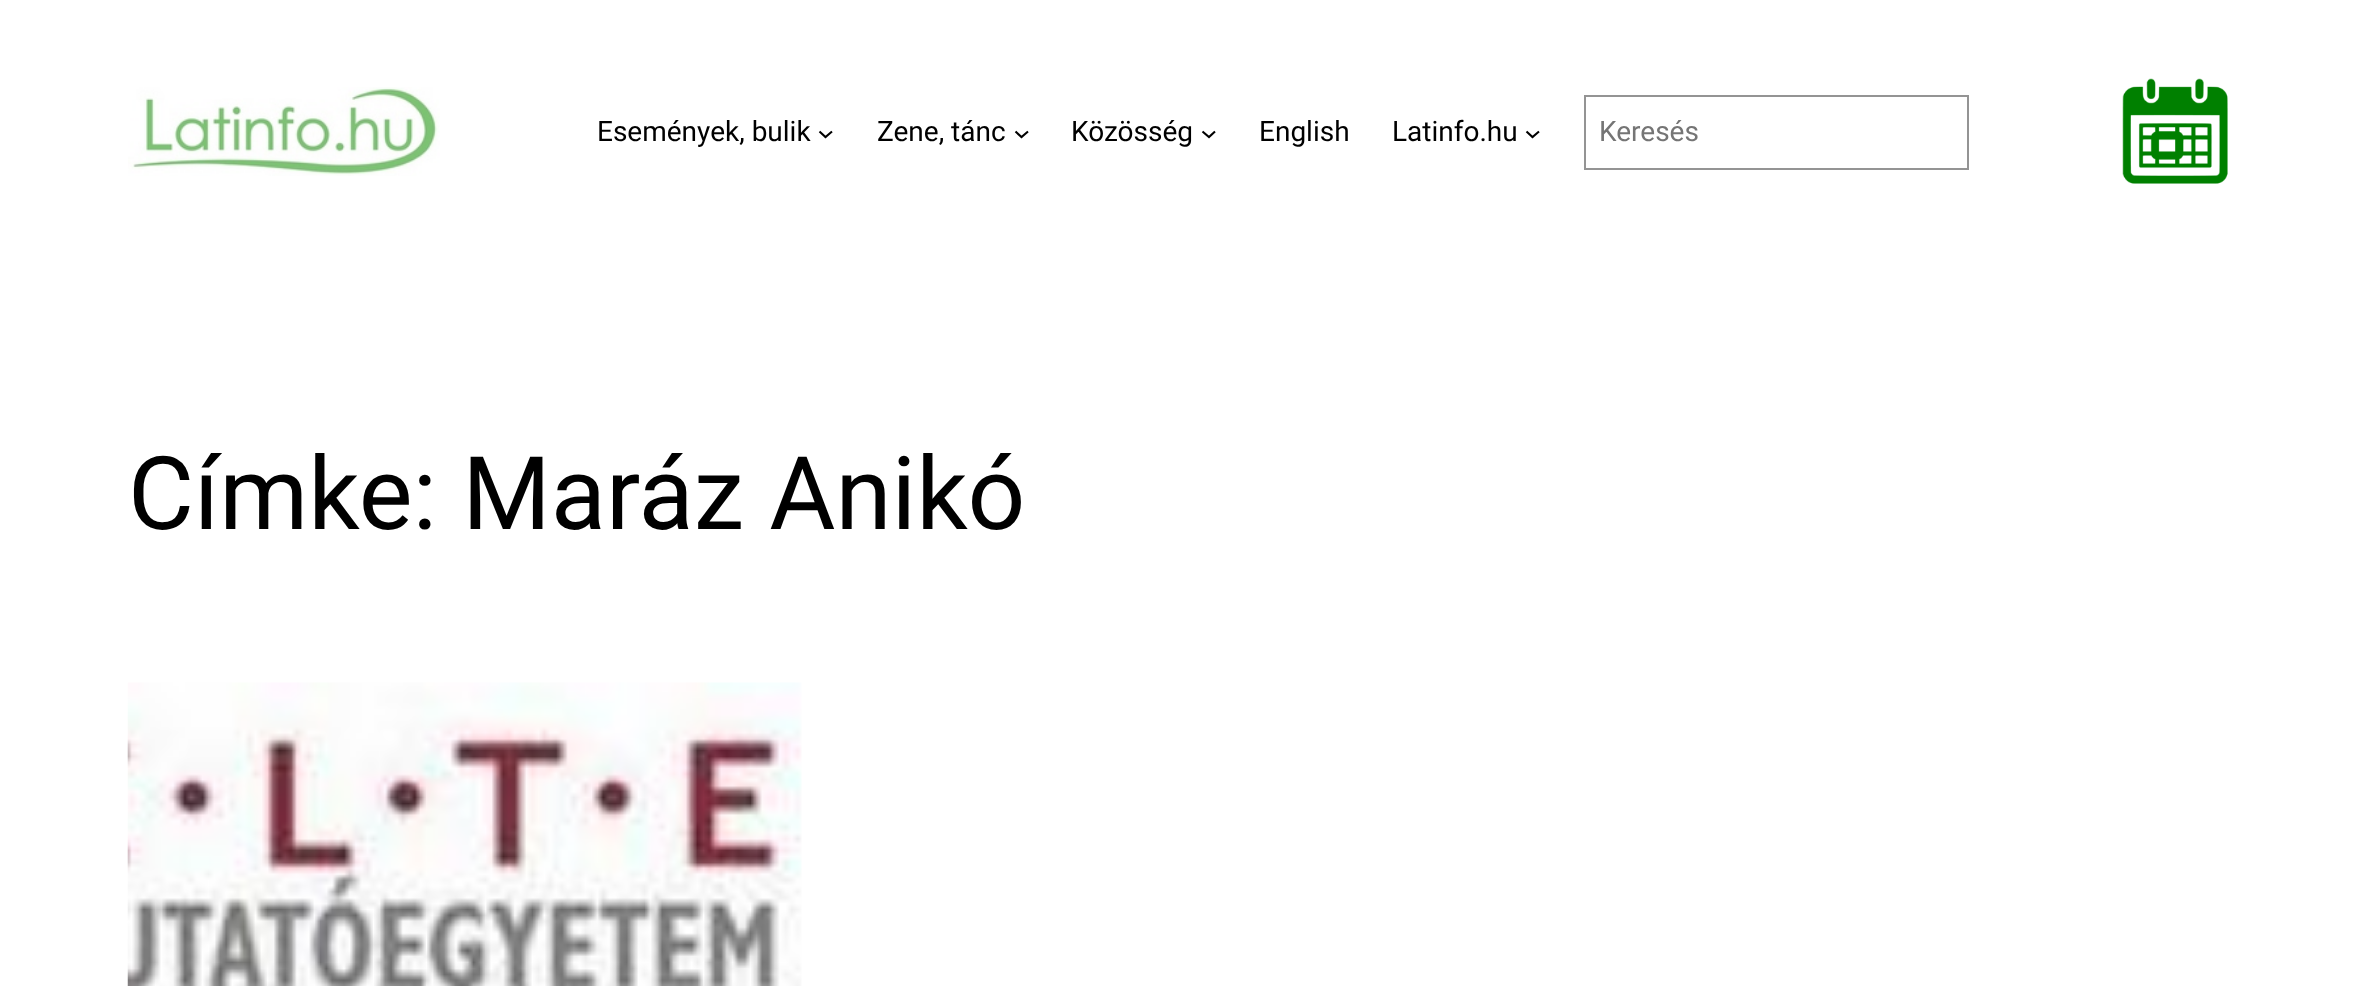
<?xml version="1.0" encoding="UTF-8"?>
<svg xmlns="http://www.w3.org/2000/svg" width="2354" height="986">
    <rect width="100%" height="100%" fill="#FFFFFF"/>
    <image x="128" y="87" width="312" height="89" href="img_01.png"/>
    <text x="597" y="141" font-family="Roboto" font-size="28" fill="#000000">Események, bulik</text>
    <path d="M 819.5 131.5 L 825.5 137 L 832 131.5" fill="none" stroke="#000000" stroke-width="2.1"/>
    <text x="877" y="141" font-family="Roboto" font-size="28" fill="#000000">Zene, tánc</text>
    <path d="M 1015.5 131.5 L 1021.5 137 L 1028 131.5" fill="none" stroke="#000000" stroke-width="2.1"/>
    <text x="1071" y="141" font-family="Roboto" font-size="28" fill="#000000">Közösség</text>
    <path d="M 1202.5 131.5 L 1209 137 L 1215 131.5" fill="none" stroke="#000000" stroke-width="2.1"/>
    <text x="1259" y="141" font-family="Roboto" font-size="28" fill="#000000">English</text>
    <text x="1392" y="141" font-family="Roboto" font-size="28" fill="#000000">Latinfo.hu</text>
    <path d="M 1526.5 131.5 L 1532.5 137 L 1539 131.5" fill="none" stroke="#000000" stroke-width="2.1"/>
    <rect x="1585" y="96" width="383" height="73" fill="none" stroke="#949494" stroke-width="2"/>
    <text x="1599" y="141" font-family="Roboto" font-size="28" fill="#757575">Keresés</text>
    <image x="2122" y="78" width="106" height="106" href="img_02.png"/>
    <text x="128" y="529" font-family="Roboto" font-size="101.5" fill="#000000">Címke: Maráz Anikó</text>
    <image x="127" y="682" width="675" height="304" href="img_03.png"/>
</svg>
